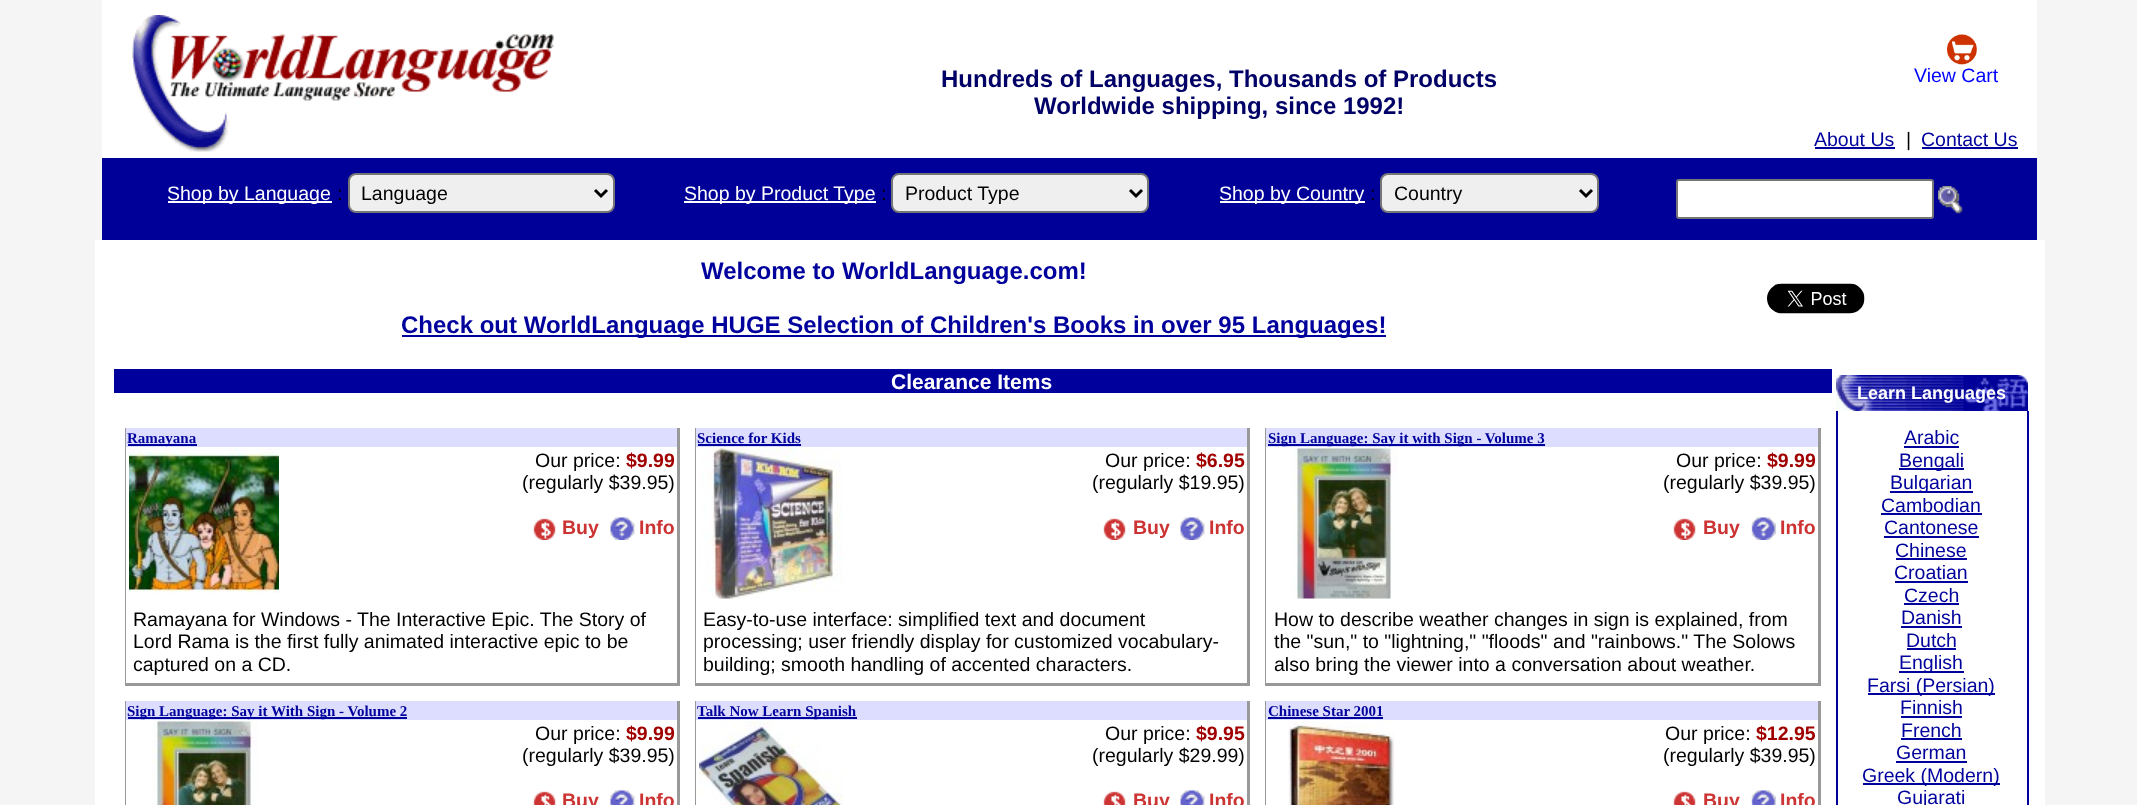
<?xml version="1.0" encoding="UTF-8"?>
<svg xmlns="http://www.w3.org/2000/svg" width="2137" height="805">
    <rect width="100%" height="100%" fill="#F5F5F5"/>
    <rect x="102" y="0" width="1935" height="158" fill="#FFFFFF"/>
    <image x="132" y="15" width="422" height="137" href="img_01.png"/>
    <text x="941" y="87" font-family="Liberation Sans" font-size="24" font-weight="700" fill="#000066">Hundreds of Languages, Thousands of Products</text>
    <text x="1034" y="114" font-family="Liberation Sans" font-size="24" font-weight="700" fill="#000066">Worldwide shipping, since 1992!</text>
    <image x="1947" y="34" width="30" height="31" href="img_02.png"/>
    <text x="1914" y="82" font-family="Liberation Sans" font-size="19.5" fill="#0000FF">View Cart</text>
    <text x="1814" y="146" font-family="Liberation Sans" font-size="19.5" fill="#00009C">About Us</text>
    <rect x="1815" y="147" width="80" height="2" fill="#00009C"/>
    <text x="1906" y="146" font-family="Liberation Sans" font-size="19.5" fill="#000000">|</text>
    <text x="1921" y="146" font-family="Liberation Sans" font-size="19.5" fill="#00009C">Contact Us</text>
    <rect x="1922" y="147" width="96" height="2" fill="#00009C"/>
    <rect x="102" y="158" width="1935" height="82" fill="#000099"/>
    <rect x="168" y="201" width="164" height="2" fill="#FFFFFF"/>
    <text x="167" y="200" font-family="Liberation Sans" font-size="19.5" fill="#FFFFFF">Shop by Language</text>
    <text x="337" y="200" font-family="Liberation Sans" font-size="19.5" fill="#000000">:</text>
    <rect x="349" y="174" width="265" height="38" rx="7" fill="#EFEFEF" stroke="#767676" stroke-width="2"/>
    <path d="M 595 190 L 601 196 L 607 190" fill="none" stroke="#000000" stroke-width="3"/>
    <text x="361" y="200" font-family="Liberation Sans" font-size="19.5" fill="#000000">Language</text>
    <rect x="684" y="201" width="192" height="2" fill="#FFFFFF"/>
    <text x="684" y="200" font-family="Liberation Sans" font-size="19.5" fill="#FFFFFF">Shop by Product Type</text>
    <text x="881" y="200" font-family="Liberation Sans" font-size="19.5" fill="#000000">:</text>
    <rect x="892" y="174" width="256" height="38" rx="7" fill="#EFEFEF" stroke="#767676" stroke-width="2"/>
    <path d="M 1130 190 L 1136 196 L 1142 190" fill="none" stroke="#000000" stroke-width="3"/>
    <text x="905" y="200" font-family="Liberation Sans" font-size="19.5" fill="#000000">Product Type</text>
    <rect x="1220" y="201" width="145" height="2" fill="#FFFFFF"/>
    <text x="1219" y="200" font-family="Liberation Sans" font-size="19.5" fill="#FFFFFF">Shop by Country</text>
    <text x="1370" y="200" font-family="Liberation Sans" font-size="19.5" fill="#000000">:</text>
    <rect x="1381" y="174" width="217" height="38" rx="7" fill="#EFEFEF" stroke="#767676" stroke-width="2"/>
    <path d="M 1580 190 L 1586 196 L 1592 190" fill="none" stroke="#000000" stroke-width="3"/>
    <text x="1394" y="200" font-family="Liberation Sans" font-size="19.5" fill="#000000">Country</text>
    <rect x="1677" y="180" width="256" height="38" rx="2" fill="#FFFFFF" stroke="#767676" stroke-width="2"/>
    <image x="1938" y="186" width="25" height="28" href="img_03.png"/>
    <rect x="95" y="240" width="1950" height="565" fill="#FFFFFF"/>
    <text x="701" y="279" font-family="Liberation Sans" font-size="24" font-weight="700" fill="#00009C">Welcome to WorldLanguage.com!</text>
    <rect x="402" y="335" width="984" height="2" fill="#00009C"/>
    <text x="401" y="333" font-family="Liberation Sans" font-size="24" font-weight="700" fill="#00009C">Check out WorldLanguage HUGE Selection of Children's Books in over 95 Languages!</text>
    <image x="1767" y="283" width="98" height="31" href="img_04.png"/>
    <rect x="114" y="369" width="1718" height="24" fill="#00009C"/>
    <text x="891" y="389" font-family="Liberation Sans" font-size="21" font-weight="700" fill="#FFFFFF">Clearance Items</text>
    <rect x="677" y="428" width="3" height="258" fill="#999999"/>
    <rect x="125" y="683" width="555" height="3" fill="#999999"/>
    <rect x="125" y="428" width="2" height="258" fill="#999999"/>
    <rect x="126" y="447" width="1" height="236" fill="#FFFFFF"/>
    <rect x="126" y="428" width="551" height="19" fill="#DDDDFF"/>
    <rect x="128" y="444" width="69" height="2" fill="#00009C"/>
    <text x="127" y="443" font-family="Liberation Serif" font-size="15" font-weight="700" fill="#00009C">Ramayana</text>
    <image x="129" y="448" width="150" height="146" href="img_05.png"/>
    <text x="535" y="467" font-family="Liberation Sans" font-size="19.5" fill="#000000">Our price:</text>
    <text x="626" y="467" font-family="Liberation Sans" font-size="19.5" font-weight="700" fill="#A00000">$9.99</text>
    <text x="522" y="489" font-family="Liberation Sans" font-size="19.5" fill="#000000">(regularly $39.95)</text>
    <image x="533" y="518" width="23" height="22" href="img_06.png"/>
    <text x="562" y="534" font-family="Liberation Sans" font-size="19.5" font-weight="700" fill="#CC3333">Buy</text>
    <image x="610" y="517" width="25" height="23" href="img_07.png"/>
    <text x="639" y="534" font-family="Liberation Sans" font-size="19.5" font-weight="700" fill="#CC3333">Info</text>
    <text font-family="Liberation Sans" font-size="19.5" fill="#000000">
        <tspan x="133" y="626">Ramayana for Windows - The Interactive Epic. The Story of</tspan>
        <tspan x="133" y="648">Lord Rama is the first fully animated interactive epic to be</tspan>
        <tspan x="133" y="671">captured on a CD.</tspan>
    </text>
    <rect x="1247" y="428" width="3" height="258" fill="#999999"/>
    <rect x="695" y="683" width="555" height="3" fill="#999999"/>
    <rect x="695" y="428" width="2" height="258" fill="#999999"/>
    <rect x="696" y="447" width="1" height="236" fill="#FFFFFF"/>
    <rect x="696" y="428" width="551" height="19" fill="#DDDDFF"/>
    <text x="697" y="443" font-family="Liberation Serif" font-size="15" font-weight="700" fill="#00009C">Science for Kids</text>
    <rect x="698" y="444" width="103" height="2" fill="#00009C"/>
    <image x="699" y="448" width="144" height="151" href="img_08.png"/>
    <text x="1105" y="467" font-family="Liberation Sans" font-size="19.5" fill="#000000">Our price:</text>
    <text x="1196" y="467" font-family="Liberation Sans" font-size="19.5" font-weight="700" fill="#A00000">$6.95</text>
    <text x="1092" y="489" font-family="Liberation Sans" font-size="19.5" fill="#000000">(regularly $19.95)</text>
    <image x="1103" y="518" width="23" height="22" href="img_09.png"/>
    <text x="1133" y="534" font-family="Liberation Sans" font-size="19.5" font-weight="700" fill="#CC3333">Buy</text>
    <image x="1180" y="517" width="25" height="23" href="img_10.png"/>
    <text x="1209" y="534" font-family="Liberation Sans" font-size="19.5" font-weight="700" fill="#CC3333">Info</text>
    <text font-family="Liberation Sans" font-size="19.5" fill="#000000">
        <tspan x="703" y="626">Easy-to-use interface: simplified text and document</tspan>
        <tspan x="703" y="648">processing; user friendly display for customized vocabulary-</tspan>
        <tspan x="703" y="671">building; smooth handling of accented characters.</tspan>
    </text>
    <rect x="1818" y="428" width="3" height="258" fill="#999999"/>
    <rect x="1265" y="683" width="556" height="3" fill="#999999"/>
    <rect x="1265" y="428" width="2" height="258" fill="#999999"/>
    <rect x="1266" y="447" width="1" height="236" fill="#FFFFFF"/>
    <rect x="1266" y="428" width="552" height="19" fill="#DDDDFF"/>
    <rect x="1268" y="444" width="277" height="2" fill="#00009C"/>
    <text x="1268" y="443" font-family="Liberation Serif" font-size="15" font-weight="700" fill="#00009C">Sign Language: Say it with Sign - Volume 3</text>
    <image x="1292" y="448" width="106" height="151" href="img_11.png"/>
    <text x="1676" y="467" font-family="Liberation Sans" font-size="19.5" fill="#000000">Our price:</text>
    <text x="1767" y="467" font-family="Liberation Sans" font-size="19.5" font-weight="700" fill="#A00000">$9.99</text>
    <text x="1663" y="489" font-family="Liberation Sans" font-size="19.5" fill="#000000">(regularly $39.95)</text>
    <image x="1673" y="518" width="23" height="22" href="img_09.png"/>
    <text x="1703" y="534" font-family="Liberation Sans" font-size="19.5" font-weight="700" fill="#CC3333">Buy</text>
    <image x="1751" y="517" width="25" height="23" href="img_12.png"/>
    <text x="1780" y="534" font-family="Liberation Sans" font-size="19.5" font-weight="700" fill="#CC3333">Info</text>
    <text font-family="Liberation Sans" font-size="19.5" fill="#000000">
        <tspan x="1274" y="626">How to describe weather changes in sign is explained, from</tspan>
        <tspan x="1274" y="648">the "sun," to "lightning," "floods" and "rainbows." The Solows</tspan>
        <tspan x="1274" y="671">also bring the viewer into a conversation about weather.</tspan>
    </text>
    <rect x="677" y="701" width="3" height="104" fill="#999999"/>
    <rect x="125" y="701" width="1" height="104" fill="#999999"/>
    <rect x="126" y="701" width="551" height="19" fill="#DDDDFF"/>
    <rect x="128" y="717" width="279" height="2" fill="#00009C"/>
    <text x="127" y="716" font-family="Liberation Serif" font-size="15" font-weight="700" fill="#00009C">Sign Language: Say it With Sign - Volume 2</text>
    <image x="152" y="721" width="106" height="84" href="img_13.png"/>
    <text x="535" y="740" font-family="Liberation Sans" font-size="19.5" fill="#000000">Our price:</text>
    <text x="626" y="740" font-family="Liberation Sans" font-size="19.5" font-weight="700" fill="#A00000">$9.99</text>
    <text x="522" y="762" font-family="Liberation Sans" font-size="19.5" fill="#000000">(regularly $39.95)</text>
    <image x="533" y="791" width="23" height="14" href="img_14.png"/>
    <text x="562" y="807" font-family="Liberation Sans" font-size="19.5" font-weight="700" fill="#CC3333">Buy</text>
    <image x="610" y="790" width="25" height="15" href="img_15.png"/>
    <text x="639" y="807" font-family="Liberation Sans" font-size="19.5" font-weight="700" fill="#CC3333">Info</text>
    <rect x="1247" y="701" width="3" height="104" fill="#999999"/>
    <rect x="695" y="701" width="1" height="104" fill="#999999"/>
    <rect x="696" y="701" width="551" height="19" fill="#DDDDFF"/>
    <rect x="698" y="717" width="159" height="2" fill="#00009C"/>
    <text x="697" y="716" font-family="Liberation Serif" font-size="15" font-weight="700" fill="#00009C">Talk Now Learn Spanish</text>
    <image x="699" y="721" width="145" height="84" href="img_16.png"/>
    <text x="1105" y="740" font-family="Liberation Sans" font-size="19.5" fill="#000000">Our price:</text>
    <text x="1196" y="740" font-family="Liberation Sans" font-size="19.5" font-weight="700" fill="#A00000">$9.95</text>
    <text x="1092" y="762" font-family="Liberation Sans" font-size="19.5" fill="#000000">(regularly $29.99)</text>
    <image x="1103" y="791" width="23" height="14" href="img_17.png"/>
    <text x="1133" y="807" font-family="Liberation Sans" font-size="19.5" font-weight="700" fill="#CC3333">Buy</text>
    <image x="1180" y="790" width="25" height="15" href="img_18.png"/>
    <text x="1209" y="807" font-family="Liberation Sans" font-size="19.5" font-weight="700" fill="#CC3333">Info</text>
    <rect x="1818" y="701" width="3" height="104" fill="#999999"/>
    <rect x="1265" y="701" width="1" height="104" fill="#999999"/>
    <rect x="1266" y="701" width="552" height="19" fill="#DDDDFF"/>
    <text x="1268" y="716" font-family="Liberation Serif" font-size="15" font-weight="700" fill="#00009C">Chinese Star 2001</text>
    <rect x="1268" y="717" width="115" height="2" fill="#00009C"/>
    <image x="1288" y="721" width="107" height="84" href="img_19.png"/>
    <text x="1665" y="740" font-family="Liberation Sans" font-size="19.5" fill="#000000">Our price:</text>
    <text x="1756" y="740" font-family="Liberation Sans" font-size="19.5" font-weight="700" fill="#A00000">$12.95</text>
    <text x="1663" y="762" font-family="Liberation Sans" font-size="19.5" fill="#000000">(regularly $39.95)</text>
    <image x="1673" y="791" width="23" height="14" href="img_17.png"/>
    <text x="1703" y="807" font-family="Liberation Sans" font-size="19.5" font-weight="700" fill="#CC3333">Buy</text>
    <image x="1751" y="790" width="25" height="15" href="img_20.png"/>
    <text x="1780" y="807" font-family="Liberation Sans" font-size="19.5" font-weight="700" fill="#CC3333">Info</text>
    <image x="1836" y="375" width="192" height="36" href="img_21.png"/>
    <text x="1857" y="399" font-family="Liberation Sans" font-size="18" font-weight="700" fill="#FFFFFF">Learn Languages</text>
    <rect x="1836" y="411" width="2" height="394" fill="#00009C"/>
    <rect x="2027" y="411" width="2" height="394" fill="#00009C"/>
    <text x="1904" y="444" font-family="Liberation Sans" font-size="19.5" fill="#00009C">Arabic</text>
    <rect x="1904" y="446" width="55" height="2" fill="#00009C"/>
    <rect x="1899" y="468" width="65" height="2" fill="#00009C"/>
    <text x="1899" y="467" font-family="Liberation Sans" font-size="19.5" fill="#00009C">Bengali</text>
    <rect x="1890" y="491" width="83" height="2" fill="#00009C"/>
    <text x="1890" y="489" font-family="Liberation Sans" font-size="19.5" fill="#00009C">Bulgarian</text>
    <text x="1881" y="512" font-family="Liberation Sans" font-size="19.5" fill="#00009C">Cambodian</text>
    <rect x="1881" y="513" width="101" height="2" fill="#00009C"/>
    <text x="1884" y="534" font-family="Liberation Sans" font-size="19.5" fill="#00009C">Cantonese</text>
    <rect x="1884" y="536" width="95" height="2" fill="#00009C"/>
    <text x="1895" y="557" font-family="Liberation Sans" font-size="19.5" fill="#00009C">Chinese</text>
    <rect x="1896" y="558" width="71" height="2" fill="#00009C"/>
    <text x="1894" y="579" font-family="Liberation Sans" font-size="19.5" fill="#00009C">Croatian</text>
    <rect x="1895" y="581" width="73" height="2" fill="#00009C"/>
    <text x="1904" y="602" font-family="Liberation Sans" font-size="19.5" fill="#00009C">Czech</text>
    <rect x="1904" y="603" width="55" height="2" fill="#00009C"/>
    <text x="1901" y="624" font-family="Liberation Sans" font-size="19.5" fill="#00009C">Danish</text>
    <rect x="1901" y="626" width="61" height="2" fill="#00009C"/>
    <text x="1906" y="647" font-family="Liberation Sans" font-size="19.5" fill="#00009C">Dutch</text>
    <rect x="1907" y="648" width="49" height="2" fill="#00009C"/>
    <rect x="1899" y="671" width="65" height="2" fill="#00009C"/>
    <text x="1899" y="669" font-family="Liberation Sans" font-size="19.5" fill="#00009C">English</text>
    <rect x="1868" y="693" width="127" height="2" fill="#00009C"/>
    <text x="1867" y="692" font-family="Liberation Sans" font-size="19.5" fill="#00009C">Farsi (Persian)</text>
    <text x="1900" y="714" font-family="Liberation Sans" font-size="19.5" fill="#00009C">Finnish</text>
    <rect x="1901" y="716" width="61" height="2" fill="#00009C"/>
    <text x="1901" y="737" font-family="Liberation Sans" font-size="19.5" fill="#00009C">French</text>
    <rect x="1901" y="738" width="61" height="2" fill="#00009C"/>
    <text x="1896" y="759" font-family="Liberation Sans" font-size="19.5" fill="#00009C">German</text>
    <rect x="1896" y="761" width="71" height="2" fill="#00009C"/>
    <rect x="1863" y="783" width="137" height="2" fill="#00009C"/>
    <text x="1862" y="782" font-family="Liberation Sans" font-size="19.5" fill="#00009C">Greek (Modern)</text>
    <text x="1897" y="804" font-family="Liberation Sans" font-size="19.5" fill="#00009C">Gujarati</text>
</svg>
